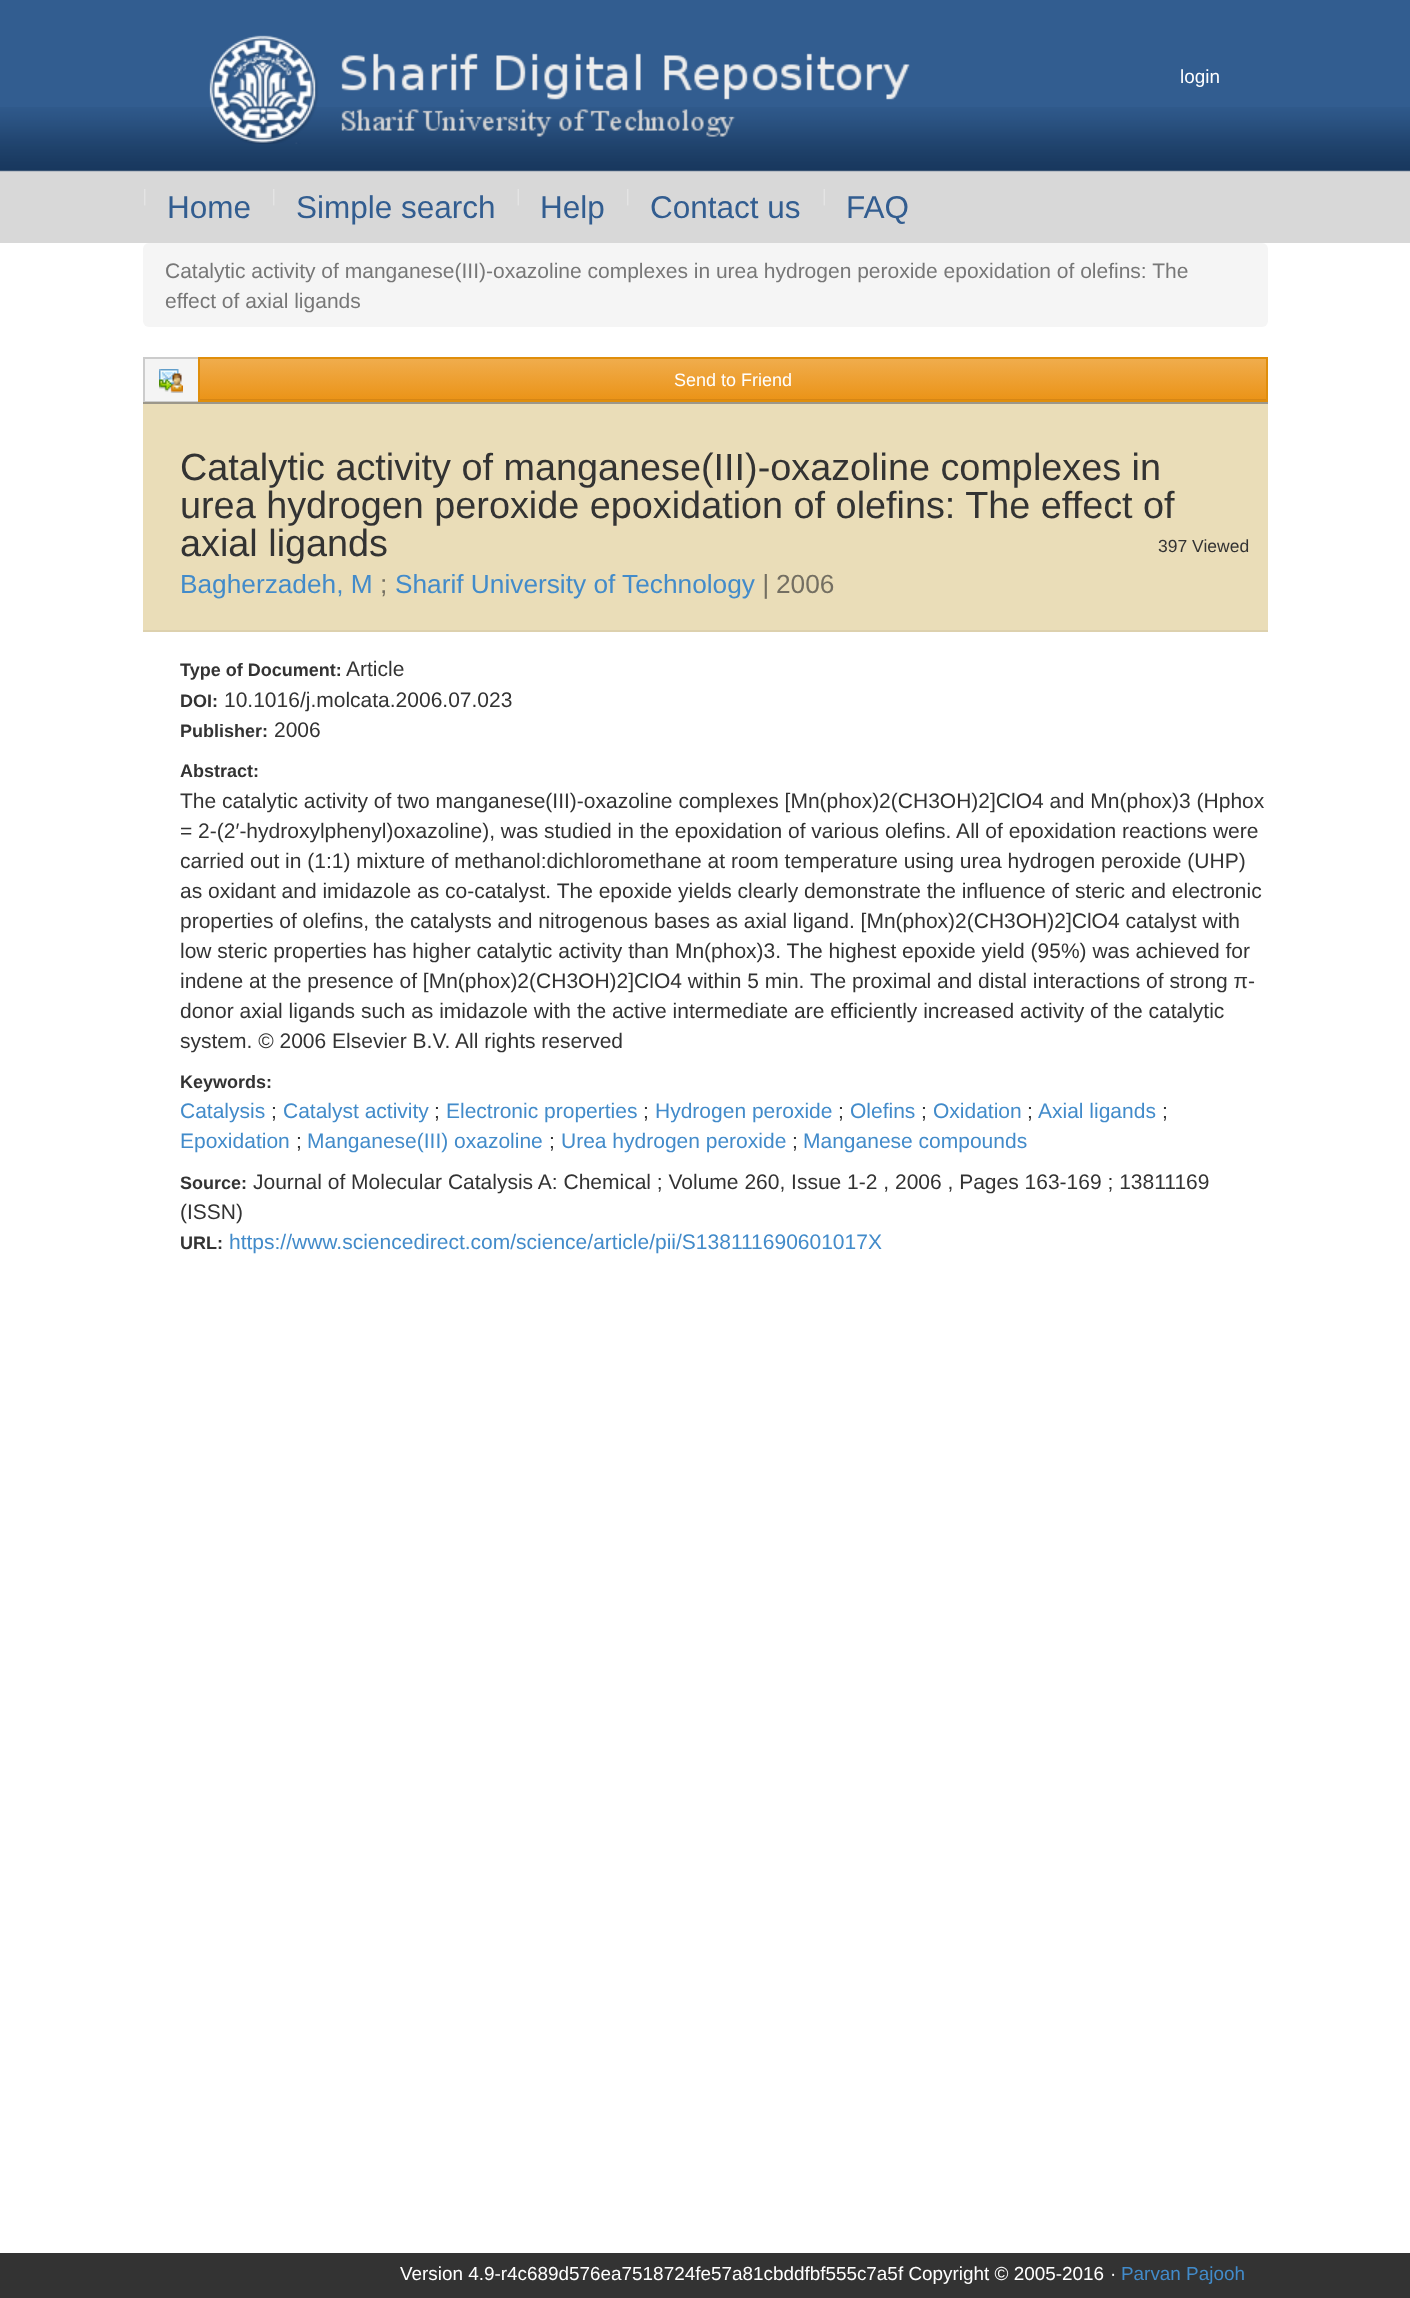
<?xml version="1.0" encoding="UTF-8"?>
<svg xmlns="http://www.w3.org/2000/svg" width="1410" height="2298">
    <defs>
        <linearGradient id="g1" gradientUnits="userSpaceOnUse" x1="733" y1="358" x2="733" y2="401"><stop offset="0" stop-color="#F0AD4E"/><stop offset="1" stop-color="#EB9316"/></linearGradient>
    </defs>
    <rect width="100%" height="100%" fill="#FFFFFF"/>
    <rect x="0" y="0" width="1410" height="107" fill="#325D90"/>
    <image x="0" y="107" width="1410" height="136" href="img_01.png"/>
    <image x="209" y="35" width="701" height="109" href="img_02.png"/>
    <text x="1180" y="83" font-family="Liberation Sans" font-size="18.9" fill="#FFFFFF">login</text>
    <image x="144" y="189" width="2" height="17" href="img_03.png"/>
    <text x="167" y="218" font-family="Liberation Sans" font-size="31.5" fill="#325D90">Home</text>
    <image x="273" y="189" width="2" height="17" href="img_03.png"/>
    <text x="296" y="218" font-family="Liberation Sans" font-size="31.5" fill="#325D90">Simple search</text>
    <image x="517" y="189" width="2" height="17" href="img_04.png"/>
    <text x="540" y="218" font-family="Liberation Sans" font-size="31.5" fill="#325D90">Help</text>
    <image x="627" y="189" width="2" height="17" href="img_03.png"/>
    <text x="650" y="218" font-family="Liberation Sans" font-size="31.5" fill="#325D90">Contact us</text>
    <image x="823" y="189" width="2" height="17" href="img_04.png"/>
    <text x="846" y="218" font-family="Liberation Sans" font-size="31.5" fill="#325D90">FAQ</text>
    <rect x="143" y="243" width="1125" height="84" rx="6" fill="#F5F5F5"/>
    <text font-family="Liberation Sans" font-size="21" fill="#777777">
        <tspan x="165" y="278">Catalytic activity of manganese(III)-oxazoline complexes in urea hydrogen peroxide epoxidation of olefins: The</tspan>
        <tspan x="165" y="308">effect of axial ligands</tspan>
    </text>
    <rect x="145" y="359" width="53" height="42" fill="#F4F4F4"/>
    <rect x="143" y="357" width="55" height="2" fill="#CCCCCC"/>
    <rect x="143" y="401" width="55" height="1" fill="#CCCCCC"/>
    <rect x="143" y="357" width="2" height="45" fill="#CCCCCC"/>
    <image x="159" y="369" width="24" height="24" href="img_05.png"/>
    <rect x="200" y="359" width="1066" height="40" fill="url(#g1)"/>
    <rect x="200" y="399" width="1066" height="1" fill="#D68615"/>
    <rect x="199" y="358" width="1068" height="43" fill="none" stroke="#E08E0B" stroke-width="2"/>
    <text x="674" y="386" font-family="Liberation Sans" font-size="18" fill="#FFFFFF">Send to Friend</text>
    <rect x="143" y="404" width="1125" height="226" fill="#EADDB8"/>
    <rect x="143" y="402" width="1125" height="2" fill="#9C978A"/>
    <rect x="143" y="630" width="1125" height="2" fill="#DDD1AE"/>
    <text font-family="Liberation Sans" font-size="37.8" fill="#333333">
        <tspan x="180" y="480">Catalytic activity of manganese(III)-oxazoline complexes in</tspan>
        <tspan x="180" y="518">urea hydrogen peroxide epoxidation of olefins: The effect of</tspan>
        <tspan x="180" y="556">axial ligands</tspan>
    </text>
    <text x="1158" y="552" font-family="Liberation Sans" font-size="17.5" fill="#333333">397 Viewed</text>
    <text x="180" y="593" font-family="Liberation Sans" font-size="26.25" fill="#428BCA">Bagherzadeh, M</text>
    <text x="380" y="593" font-family="Liberation Sans" font-size="26.25" fill="#746F62">;</text>
    <text x="395" y="593" font-family="Liberation Sans" font-size="26.25" fill="#428BCA">Sharif University of Technology</text>
    <text x="762" y="593" font-family="Liberation Sans" font-size="26.25" font-style="italic" fill="#746F62">|</text>
    <text x="776" y="593" font-family="Liberation Sans" font-size="26.25" fill="#746F62">2006</text>
    <text x="180" y="676" font-family="Liberation Sans" font-size="18" font-weight="700" fill="#333333">Type of Document:</text>
    <text x="346" y="676" font-family="Liberation Sans" font-size="21" fill="#333333">Article</text>
    <text x="180" y="707" font-family="Liberation Sans" font-size="18" font-weight="700" fill="#333333">DOI:</text>
    <text x="224" y="707" font-family="Liberation Sans" font-size="21" fill="#333333">10.1016/j.molcata.2006.07.023</text>
    <text x="180" y="737" font-family="Liberation Sans" font-size="18" font-weight="700" fill="#333333">Publisher:</text>
    <text x="274" y="737" font-family="Liberation Sans" font-size="21" fill="#333333">2006</text>
    <text x="180" y="777" font-family="Liberation Sans" font-size="18" font-weight="700" fill="#333333">Abstract:</text>
    <text font-family="Liberation Sans" font-size="21" fill="#333333">
        <tspan x="180" y="808">The catalytic activity of two manganese(III)-oxazoline complexes [Mn(phox)2(CH3OH)2]ClO4 and Mn(phox)3 (Hphox</tspan>
        <tspan x="180" y="838">= 2-(2′-hydroxylphenyl)oxazoline), was studied in the epoxidation of various olefins. All of epoxidation reactions were</tspan>
        <tspan x="180" y="868">carried out in (1:1) mixture of methanol:dichloromethane at room temperature using urea hydrogen peroxide (UHP)</tspan>
        <tspan x="180" y="898">as oxidant and imidazole as co-catalyst. The epoxide yields clearly demonstrate the influence of steric and electronic</tspan>
        <tspan x="180" y="928">properties of olefins, the catalysts and nitrogenous bases as axial ligand. [Mn(phox)2(CH3OH)2]ClO4 catalyst with</tspan>
        <tspan x="180" y="958">low steric properties has higher catalytic activity than Mn(phox)3. The highest epoxide yield (95%) was achieved for</tspan>
        <tspan x="180" y="988">indene at the presence of [Mn(phox)2(CH3OH)2]ClO4 within 5 min. The proximal and distal interactions of strong π-</tspan>
        <tspan x="180" y="1018">donor axial ligands such as imidazole with the active intermediate are efficiently increased activity of the catalytic</tspan>
        <tspan x="180" y="1048">system. © 2006 Elsevier B.V. All rights reserved</tspan>
    </text>
    <text x="180" y="1088" font-family="Liberation Sans" font-size="18" font-weight="700" fill="#333333">Keywords:</text>
    <text x="180" y="1118" font-family="Liberation Sans" font-size="21" fill="#428BCA">Catalysis</text>
    <text x="271" y="1118" font-family="Liberation Sans" font-size="21" fill="#333333">;</text>
    <text x="283" y="1118" font-family="Liberation Sans" font-size="21" fill="#428BCA">Catalyst activity</text>
    <text x="434" y="1118" font-family="Liberation Sans" font-size="21" fill="#333333">;</text>
    <text x="446" y="1118" font-family="Liberation Sans" font-size="21" fill="#428BCA">Electronic properties</text>
    <text x="643" y="1118" font-family="Liberation Sans" font-size="21" fill="#333333">;</text>
    <text x="655" y="1118" font-family="Liberation Sans" font-size="21" fill="#428BCA">Hydrogen peroxide</text>
    <text x="838" y="1118" font-family="Liberation Sans" font-size="21" fill="#333333">;</text>
    <text x="850" y="1118" font-family="Liberation Sans" font-size="21" fill="#428BCA">Olefins</text>
    <text x="921" y="1118" font-family="Liberation Sans" font-size="21" fill="#333333">;</text>
    <text x="933" y="1118" font-family="Liberation Sans" font-size="21" fill="#428BCA">Oxidation</text>
    <text x="1027" y="1118" font-family="Liberation Sans" font-size="21" fill="#333333">;</text>
    <text x="1038" y="1118" font-family="Liberation Sans" font-size="21" fill="#428BCA">Axial ligands</text>
    <text x="1162" y="1118" font-family="Liberation Sans" font-size="21" fill="#333333">;</text>
    <text x="180" y="1148" font-family="Liberation Sans" font-size="21" fill="#428BCA">Epoxidation</text>
    <text x="296" y="1148" font-family="Liberation Sans" font-size="21" fill="#333333">;</text>
    <text x="307" y="1148" font-family="Liberation Sans" font-size="21" fill="#428BCA">Manganese(III) oxazoline</text>
    <text x="549" y="1148" font-family="Liberation Sans" font-size="21" fill="#333333">;</text>
    <text x="561" y="1148" font-family="Liberation Sans" font-size="21" fill="#428BCA">Urea hydrogen peroxide</text>
    <text x="792" y="1148" font-family="Liberation Sans" font-size="21" fill="#333333">;</text>
    <text x="803" y="1148" font-family="Liberation Sans" font-size="21" fill="#428BCA">Manganese compounds</text>
    <text x="180" y="1189" font-family="Liberation Sans" font-size="18" font-weight="700" fill="#333333">Source:</text>
    <text x="253" y="1189" font-family="Liberation Sans" font-size="21" fill="#333333">Journal of Molecular Catalysis A: Chemical ; Volume 260, Issue 1-2 , 2006 , Pages 163-169 ; 13811169</text>
    <text x="180" y="1219" font-family="Liberation Sans" font-size="21" fill="#333333">(ISSN)</text>
    <text x="180" y="1249" font-family="Liberation Sans" font-size="18" font-weight="700" fill="#333333">URL:</text>
    <text x="229" y="1249" font-family="Liberation Sans" font-size="21" fill="#428BCA">https://www.sciencedirect.com/science/article/pii/S138111690601017X</text>
    <rect x="0" y="2253" width="1410" height="45" fill="#333333"/>
    <text x="400" y="2280" font-family="Liberation Sans" font-size="18.9" fill="#FFFFFF">Version 4.9-r4c689d576ea7518724fe57a81cbddfbf555c7a5f Copyright © 2005-2016</text>
    <text x="1110" y="2280" font-family="Liberation Sans" font-size="18.9" fill="#FFFFFF">·</text>
    <text x="1121" y="2280" font-family="Liberation Sans" font-size="18.9" fill="#428BCA">Parvan Pajooh</text>
</svg>
